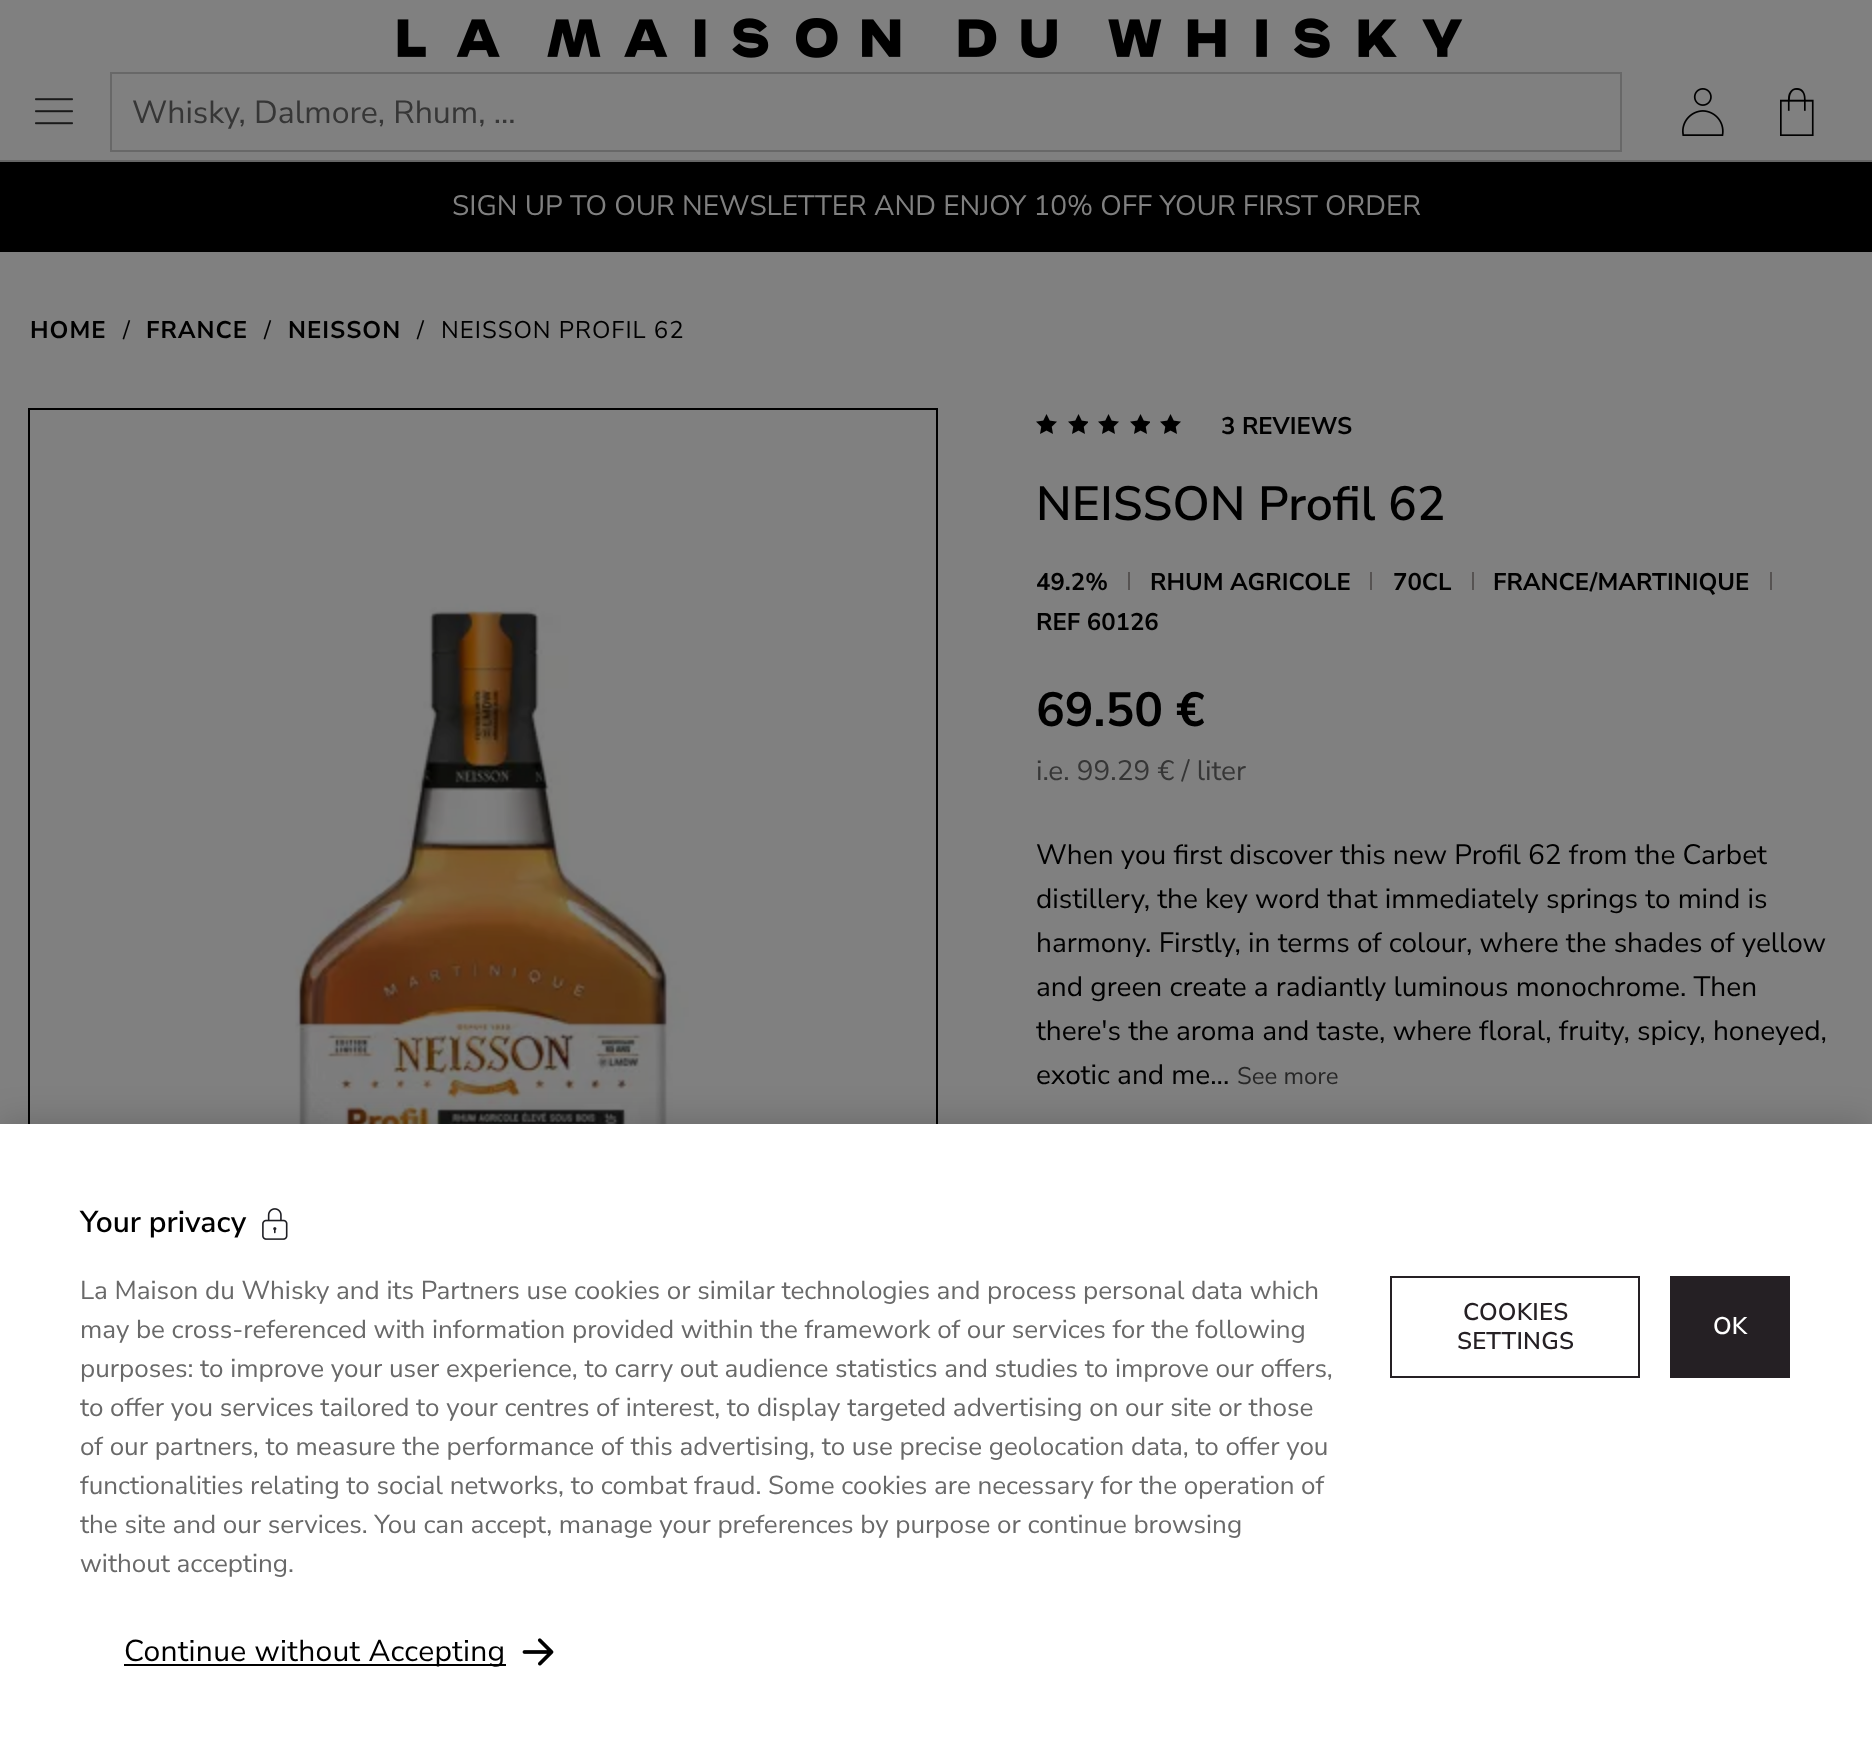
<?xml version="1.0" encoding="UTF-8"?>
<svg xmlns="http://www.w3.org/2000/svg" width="1872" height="1750">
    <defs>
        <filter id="blur1" x="-50%" y="-200%" width="200%" height="500%"><feGaussianBlur stdDeviation="18"/></filter>
    </defs>
    <rect width="100%" height="100%" fill="#808080"/>
    <rect x="0" y="160" width="1872" height="2" fill="#666666"/>
    <image x="397" y="18" width="1066" height="40" href="img_01.png"/>
    <image x="35" y="98" width="38" height="27" href="img_02.png"/>
    <rect x="111" y="73" width="1510" height="78" fill="none" stroke="#686868" stroke-width="2"/>
    <text x="132" y="123" font-family="Nunito Sans" font-size="32" fill="#363636">Whisky, Dalmore, Rhum, ...</text>
    <image x="1682" y="88" width="42" height="48" href="img_03.png"/>
    <image x="1780" y="88" width="34" height="48" href="img_04.png"/>
    <rect x="0" y="162" width="1872" height="90" fill="#000000"/>
    <text x="452" y="215" font-family="Nunito Sans" font-size="28" fill="#808080">SIGN UP TO OUR NEWSLETTER AND ENJOY 10% OFF YOUR FIRST ORDER</text>
    <text x="30" y="338" font-family="Nunito Sans" font-size="24" font-weight="700" letter-spacing="1" fill="#000000">HOME</text>
    <text x="123" y="338" font-family="Nunito Sans" font-size="24" letter-spacing="1" fill="#000000">/</text>
    <text x="146" y="338" font-family="Nunito Sans" font-size="24" font-weight="700" letter-spacing="1" fill="#000000">FRANCE</text>
    <text x="264" y="338" font-family="Nunito Sans" font-size="24" letter-spacing="1" fill="#000000">/</text>
    <text x="288" y="338" font-family="Nunito Sans" font-size="24" font-weight="700" letter-spacing="1" fill="#000000">NEISSON</text>
    <text x="417" y="338" font-family="Nunito Sans" font-size="24" letter-spacing="1" fill="#000000">/</text>
    <text x="441" y="338" font-family="Nunito Sans" font-size="24" letter-spacing="1" fill="#000000">NEISSON PROFIL 62</text>
    <rect x="29" y="409" width="908" height="1210" fill="none" stroke="#000000" stroke-width="2"/>
    <image x="120" y="528" width="728" height="596" href="img_05.png"/>
    <image x="1036" y="414" width="21" height="20" href="img_06.png"/>
    <image x="1068" y="414" width="20" height="20" href="img_07.png"/>
    <image x="1098" y="414" width="21" height="20" href="img_06.png"/>
    <image x="1130" y="414" width="20" height="20" href="img_07.png"/>
    <image x="1160" y="414" width="21" height="20" href="img_06.png"/>
    <text x="1221" y="434" font-family="Nunito Sans" font-size="24" font-weight="700" fill="#000000">3 REVIEWS</text>
    <text x="1036" y="520" font-family="Nunito Sans" font-size="48" font-weight="600" fill="#000000">NEISSON Profil 62</text>
    <text x="1036" y="590" font-family="Nunito Sans" font-size="24" font-weight="700" fill="#000000">49.2%</text>
    <rect x="1128" y="572" width="2" height="18" fill="#565352"/>
    <text x="1150" y="590" font-family="Nunito Sans" font-size="24" font-weight="700" fill="#000000">RHUM AGRICOLE</text>
    <rect x="1370" y="572" width="2" height="18" fill="#565352"/>
    <text x="1393" y="590" font-family="Nunito Sans" font-size="24" font-weight="700" fill="#000000">70CL</text>
    <rect x="1472" y="572" width="2" height="18" fill="#565352"/>
    <text x="1493" y="590" font-family="Nunito Sans" font-size="24" font-weight="700" fill="#000000">FRANCE/MARTINIQUE</text>
    <rect x="1770" y="572" width="2" height="18" fill="#565352"/>
    <text x="1036" y="630" font-family="Nunito Sans" font-size="24" font-weight="700" fill="#000000">REF 60126</text>
    <text x="1036" y="726" font-family="Nunito Sans" font-size="48" font-weight="700" fill="#000000">69.50 €</text>
    <text x="1036" y="780" font-family="Nunito Sans" font-size="28" fill="#363636">i.e. 99.29 € / liter</text>
    <text font-family="Nunito Sans" font-size="28" fill="#000000">
        <tspan x="1036" y="864">When you first discover this new Profil 62 from the Carbet</tspan>
        <tspan x="1036" y="908">distillery, the key word that immediately springs to mind is</tspan>
        <tspan x="1036" y="952">harmony. Firstly, in terms of colour, where the shades of yellow</tspan>
        <tspan x="1036" y="996">and green create a radiantly luminous monochrome. Then</tspan>
        <tspan x="1036" y="1040">there's the aroma and taste, where floral, fruity, spicy, honeyed,</tspan>
        <tspan x="1036" y="1084">exotic and me...</tspan>
    </text>
    <text x="1237" y="1084" font-family="Nunito Sans" font-size="24" fill="#272727">See more</text>
    <rect x="0" y="1124" width="1872" height="626" fill="#000000" fill-opacity="0.2" filter="url(#blur1)"/>
    <rect x="0" y="1124" width="1872" height="626" fill="#FFFFFF"/>
    <text x="80" y="1232" font-family="Nunito Sans" font-size="30" font-weight="600" fill="#000000">Your privacy</text>
    <image x="262" y="1208" width="26" height="32" href="img_08.png"/>
    <text font-family="Nunito Sans" font-size="26" fill="#696969">
        <tspan x="80" y="1299">La Maison du Whisky and its Partners use cookies or similar technologies and process personal data which</tspan>
        <tspan x="80" y="1338">may be cross-referenced with information provided within the framework of our services for the following</tspan>
        <tspan x="80" y="1377">purposes: to improve your user experience, to carry out audience statistics and studies to improve our offers,</tspan>
        <tspan x="80" y="1416">to offer you services tailored to your centres of interest, to display targeted advertising on our site or those</tspan>
        <tspan x="80" y="1455">of our partners, to measure the performance of this advertising, to use precise geolocation data, to offer you</tspan>
        <tspan x="80" y="1494">functionalities relating to social networks, to combat fraud. Some cookies are necessary for the operation of</tspan>
        <tspan x="80" y="1533">the site and our services. You can accept, manage your preferences by purpose or continue browsing</tspan>
        <tspan x="80" y="1572">without accepting.</tspan>
    </text>
    <rect x="1391" y="1277" width="248" height="100" fill="none" stroke="#252024" stroke-width="2"/>
    <text x="1463" y="1320" font-family="Nunito Sans" font-size="24" font-weight="600" letter-spacing="0.25" fill="#252024">COOKIES</text>
    <text x="1457" y="1349" font-family="Nunito Sans" font-size="24" font-weight="600" letter-spacing="0.25" fill="#252024">SETTINGS</text>
    <rect x="1670" y="1276" width="120" height="102" fill="#252024"/>
    <text x="1713" y="1334" font-family="Nunito Sans" font-size="24" font-weight="600" letter-spacing="0.25" fill="#FFFFFF">OK</text>
    <rect x="124" y="1664" width="382" height="2" fill="#000000"/>
    <text x="124" y="1661" font-family="Nunito Sans" font-size="30" letter-spacing="0.3" fill="#000000">Continue without Accepting</text>
    <image x="522" y="1638" width="32" height="28" href="img_09.png"/>
</svg>
